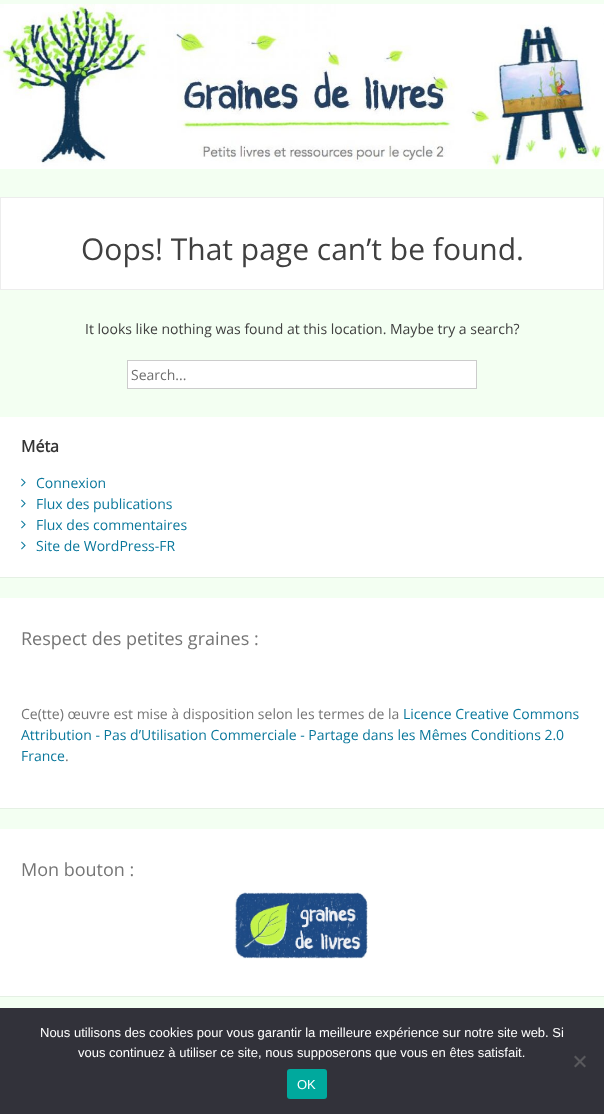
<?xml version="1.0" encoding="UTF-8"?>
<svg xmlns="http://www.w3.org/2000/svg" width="604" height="1114">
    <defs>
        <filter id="blur1" x="-50%" y="-200%" width="200%" height="500%"><feGaussianBlur stdDeviation="0.5"/></filter>
    </defs>
    <rect width="100%" height="100%" fill="#F3FFF2"/>
    <image x="0" y="4" width="604" height="165" href="img_01.png"/>
    <rect x="0.5" y="197.5" width="603" height="92" fill="#FFFFFF" stroke="#EDEDED"/>
    <text x="81" y="260" font-family="Open Sans" font-size="30" fill="#404040">Oops! That page can’t be found.</text>
    <text x="85" y="334" font-family="Open Sans" font-size="14" fill="#404040">It looks like nothing was found at this location. Maybe try a search?</text>
    <rect x="127.5" y="360.5" width="349" height="28" fill="#FFFFFF" stroke="#CCCCCC"/>
    <text x="131" y="380" font-family="Open Sans" font-size="14" fill="#6E6E6E">Search...</text>
    <rect x="0" y="418" width="604" height="160" fill="#000000" fill-opacity="0.06" filter="url(#blur1)"/>
    <rect x="0" y="417" width="604" height="160" fill="#FFFFFF"/>
    <text x="21" y="452" font-family="Open Sans" font-size="16" font-weight="700" fill="#353535">Méta</text>
    <image x="21" y="478" width="5" height="9" href="img_02.png"/>
    <text x="36" y="488" font-family="Open Sans" font-size="14" fill="#0B789C">Connexion</text>
    <image x="21" y="499" width="5" height="9" href="img_02.png"/>
    <text x="36" y="509" font-family="Open Sans" font-size="14" fill="#0B789C">Flux des publications</text>
    <image x="21" y="520" width="5" height="9" href="img_02.png"/>
    <text x="36" y="530" font-family="Open Sans" font-size="14" fill="#0B789C">Flux des commentaires</text>
    <image x="21" y="541" width="5" height="9" href="img_02.png"/>
    <text x="36" y="551" font-family="Open Sans" font-size="14" fill="#0B789C">Site de WordPress-FR</text>
    <rect x="0" y="599" width="604" height="210" fill="#000000" fill-opacity="0.06" filter="url(#blur1)"/>
    <rect x="0" y="598" width="604" height="210" fill="#FFFFFF"/>
    <text x="21" y="645" font-family="Open Sans" font-size="18" fill="#757575">Respect des petites graines :</text>
    <text x="21" y="719" font-family="Open Sans" font-size="14" fill="#757575">Ce(tte) œuvre est mise à disposition selon les termes de la</text>
    <text x="403" y="719" font-family="Open Sans" font-size="14" fill="#0B789C">Licence Creative Commons</text>
    <text font-family="Open Sans" font-size="14" fill="#0B789C">
        <tspan x="21" y="740">Attribution - Pas d’Utilisation Commerciale - Partage dans les Mêmes Conditions 2.0</tspan>
        <tspan x="21" y="761">France</tspan>
    </text>
    <text x="65" y="761" font-family="Open Sans" font-size="14" fill="#757575">.</text>
    <rect x="0" y="830" width="604" height="167" fill="#000000" fill-opacity="0.06" filter="url(#blur1)"/>
    <rect x="0" y="829" width="604" height="167" fill="#FFFFFF"/>
    <text x="21" y="876" font-family="Open Sans" font-size="18" fill="#757575">Mon bouton :</text>
    <image x="234" y="890" width="134" height="69" href="img_03.png"/>
    <rect x="0" y="1008" width="604" height="106" fill="#32323A"/>
    <text x="40" y="1037" font-family="Liberation Sans" font-size="13" fill="#FFFFFF">Nous utilisons des cookies pour vous garantir la meilleure expérience sur notre site web. Si</text>
    <text x="78" y="1057" font-family="Liberation Sans" font-size="13" fill="#FFFFFF">vous continuez à utiliser ce site, nous supposerons que vous en êtes satisfait.</text>
    <path d="M 584.5 1055.5 L 586 1057 L 575.5 1067.5 L 574 1066 Z" fill="#59595D"/>
    <path d="M 574 1057 L 575.5 1055.5 L 586 1066 L 584.5 1067.5 Z" fill="#59595D"/>
    <rect x="287" y="1069" width="40" height="30" rx="3" fill="#00A99D"/>
    <text x="297" y="1089" font-family="Liberation Sans" font-size="13" fill="#FFFFFF">OK</text>
</svg>
